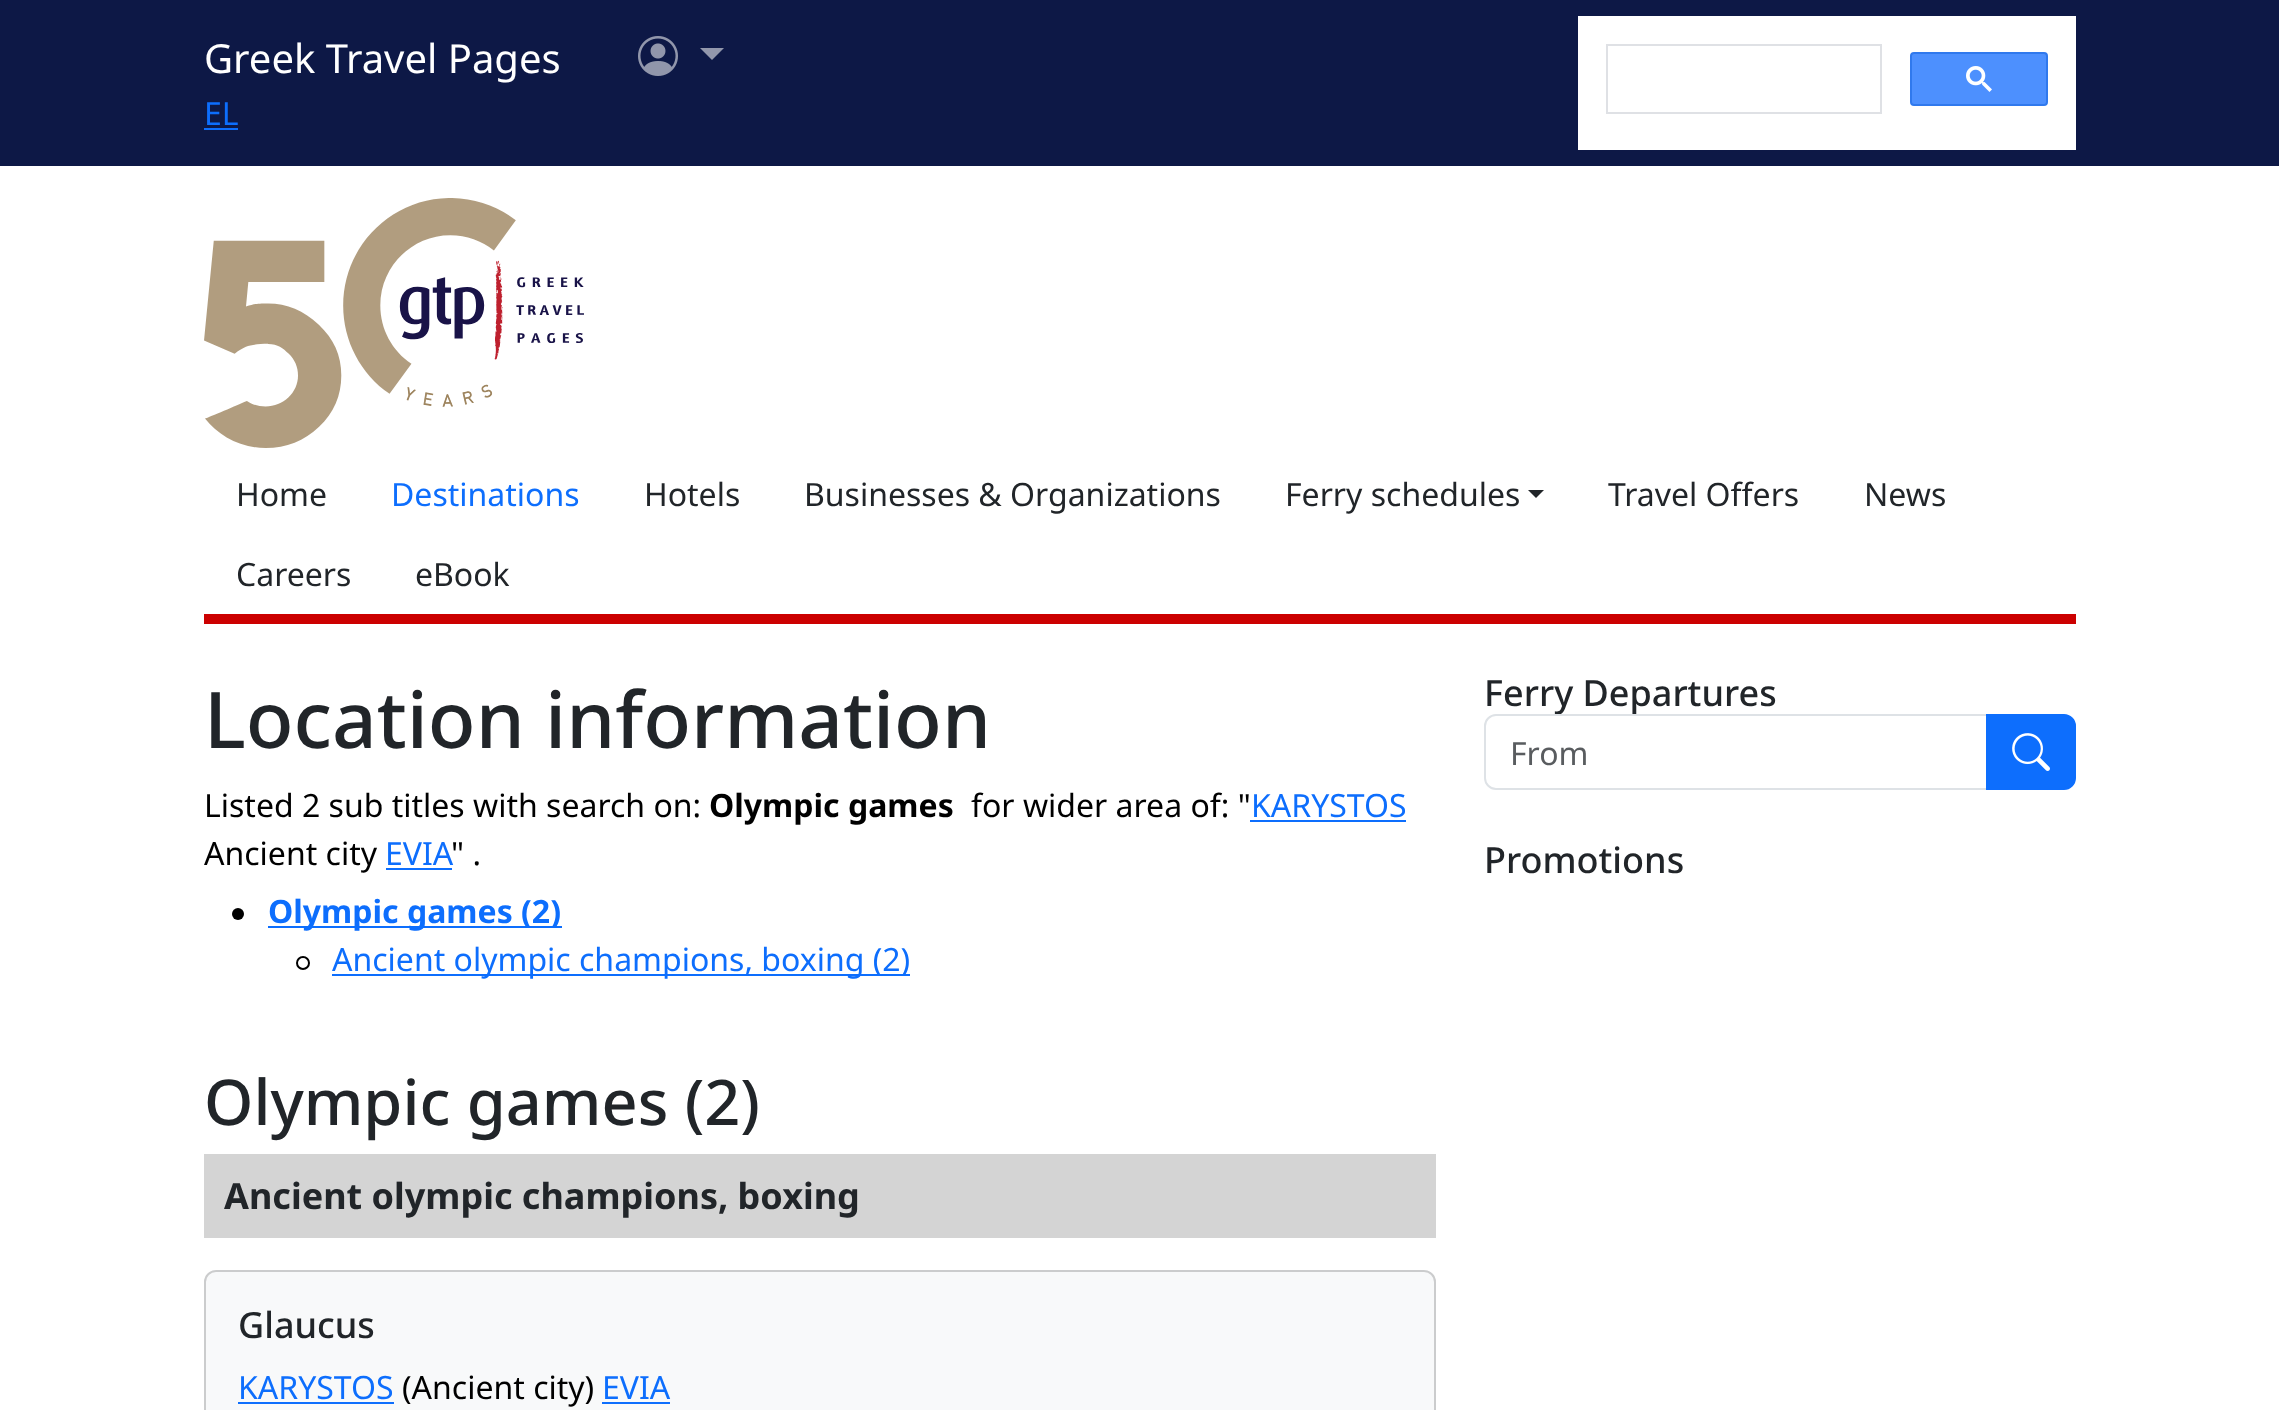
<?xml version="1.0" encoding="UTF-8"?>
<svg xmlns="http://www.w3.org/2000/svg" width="2279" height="1410">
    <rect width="100%" height="100%" fill="#FFFFFF"/>
    <rect x="0" y="0" width="2279" height="166" fill="#0D1846"/>
    <text x="204" y="73" font-family="Noto Sans" font-size="40" fill="#FFFFFF">Greek Travel Pages</text>
    <text x="204" y="125" font-family="Noto Sans" font-size="32" fill="#0D6EFD">EL</text>
    <rect x="204" y="128" width="34" height="2" fill="#0D6EFD"/>
    <image x="638" y="36" width="40" height="40" href="img_01.png"/>
    <path d="M 700 48 H 724 L 712 60 Z" fill="#9297AC"/>
    <rect x="1578" y="16" width="498" height="134" fill="#FFFFFF"/>
    <rect x="1607" y="45" width="274" height="68" fill="none" stroke="#DFE1E5" stroke-width="2"/>
    <rect x="1911" y="53" width="136" height="52" rx="3" fill="#4D90FE" stroke="#3079ED" stroke-width="2"/>
    <image x="1966" y="66" width="26" height="26" href="img_02.png"/>
    <image x="204" y="198" width="380" height="250" href="img_03.png"/>
    <rect x="204" y="614" width="1872" height="10" fill="#CC0000"/>
    <text x="236" y="506" font-family="Noto Sans" font-size="32" fill="#212529">Home</text>
    <text x="391" y="506" font-family="Noto Sans" font-size="32" fill="#0D6EFD">Destinations</text>
    <text x="644" y="506" font-family="Noto Sans" font-size="32" fill="#212529">Hotels</text>
    <text x="804" y="506" font-family="Noto Sans" font-size="32" fill="#212529">Businesses &amp; Organizations</text>
    <text x="1285" y="506" font-family="Noto Sans" font-size="32" fill="#212529">Ferry schedules</text>
    <path d="M 1528 490 H 1544 L 1536 498 Z" fill="#212529"/>
    <text x="1608" y="506" font-family="Noto Sans" font-size="32" fill="#212529">Travel Offers</text>
    <text x="1864" y="506" font-family="Noto Sans" font-size="32" fill="#212529">News</text>
    <text x="236" y="586" font-family="Noto Sans" font-size="32" fill="#212529">Careers</text>
    <text x="415" y="586" font-family="Noto Sans" font-size="32" fill="#212529">eBook</text>
    <text x="204" y="748" font-family="Noto Sans" font-size="78.25" font-weight="500" fill="#212529">Location information</text>
    <text x="204" y="817" font-family="Noto Sans" font-size="32" fill="#000000">Listed 2 sub titles with search on:</text>
    <text x="709" y="817" font-family="Noto Sans" font-size="32" font-weight="700" fill="#000000">Olympic games</text>
    <text x="971" y="817" font-family="Noto Sans" font-size="32" fill="#000000">for wider area of: "</text>
    <text x="1251" y="817" font-family="Noto Sans" font-size="32" fill="#0D6EFD">KARYSTOS</text>
    <rect x="1250" y="820" width="156" height="2" fill="#0D6EFD"/>
    <text x="204" y="865" font-family="Noto Sans" font-size="32" fill="#000000">Ancient city</text>
    <text x="385" y="865" font-family="Noto Sans" font-size="32" fill="#0D6EFD">EVIA</text>
    <rect x="386" y="868" width="66" height="2" fill="#0D6EFD"/>
    <text x="451" y="865" font-family="Noto Sans" font-size="32" fill="#000000">" .</text>
    <circle cx="238" cy="914" r="6" fill="#000000"/>
    <rect x="268" y="926" width="294" height="2" fill="#0D6EFD"/>
    <text x="268" y="923" font-family="Noto Sans" font-size="32" font-weight="700" fill="#0D6EFD">Olympic games (2)</text>
    <circle cx="303" cy="963" r="6" fill="none" stroke="#000000" stroke-width="2"/>
    <rect x="332" y="974" width="578" height="2" fill="#0D6EFD"/>
    <text x="332" y="971" font-family="Noto Sans" font-size="32" fill="#0D6EFD">Ancient olympic champions, boxing (2)</text>
    <text x="204" y="1125" font-family="Noto Sans" font-size="63" font-weight="500" fill="#212529">Olympic games (2)</text>
    <rect x="204" y="1154" width="1232" height="84" fill="#D4D4D4"/>
    <text x="224" y="1209" font-family="Noto Sans" font-size="36" font-weight="700" fill="#212529">Ancient olympic champions, boxing</text>
    <rect x="204" y="1270" width="1232" height="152" rx="12" fill="#F8F9FA"/>
    <rect x="205" y="1271" width="1230" height="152" rx="11" fill="none" stroke="#000000" stroke-opacity="0.18" stroke-width="2"/>
    <text x="238" y="1338" font-family="Noto Sans" font-size="36" font-weight="500" fill="#212529">Glaucus</text>
    <text x="238" y="1399" font-family="Noto Sans" font-size="32" fill="#0D6EFD">KARYSTOS</text>
    <rect x="238" y="1402" width="156" height="2" fill="#0D6EFD"/>
    <text x="402" y="1399" font-family="Noto Sans" font-size="32" fill="#000000">(Ancient city)</text>
    <text x="602" y="1399" font-family="Noto Sans" font-size="32" fill="#0D6EFD">EVIA</text>
    <rect x="602" y="1402" width="68" height="2" fill="#0D6EFD"/>
    <text x="1484" y="706" font-family="Noto Sans" font-size="36" font-weight="500" fill="#212529">Ferry Departures</text>
    <path d="M 1496 715 H 1987 V 789 H 1496 C 1490 789 1485 784 1485 778 V 726 C 1485 720 1490 715 1496 715 Z" fill="none" stroke="#DEE2E6" stroke-width="2"/>
    <text x="1510" y="765" font-family="Noto Sans" font-size="32" fill="#595C5F">From</text>
    <path d="M 1987 715 H 2064 C 2070 715 2075 720 2075 726 V 778 C 2075 784 2070 789 2064 789 H 1987 Z" fill="#0D6EFD" stroke="#0D6EFD" stroke-width="2"/>
    <image x="2012" y="733" width="38" height="38" href="img_04.png"/>
    <text x="1484" y="873" font-family="Noto Sans" font-size="36" font-weight="500" fill="#212529">Promotions</text>
</svg>
